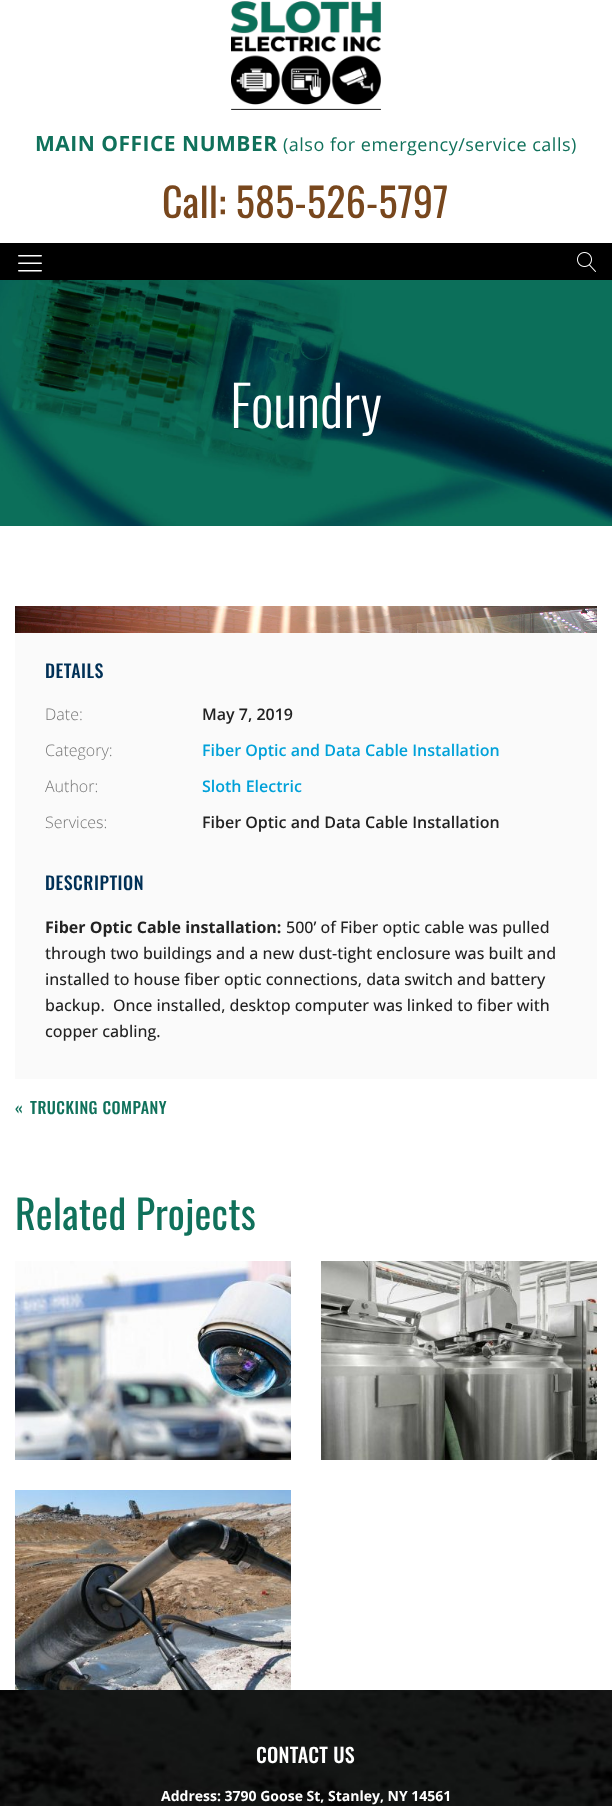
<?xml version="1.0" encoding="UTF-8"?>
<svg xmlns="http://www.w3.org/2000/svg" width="612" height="1806">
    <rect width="100%" height="100%" fill="#FFFFFF"/>
    <image x="231" y="1" width="150" height="109" href="img_01.png"/>
    <text x="35" y="151" font-family="Open Sans" font-size="21" font-weight="700" letter-spacing="0.5" fill="#10715B">MAIN OFFICE NUMBER</text>
    <text x="283" y="151" font-family="Open Sans" font-size="18" letter-spacing="0.5" fill="#10715B">(also for emergency/service calls)</text>
    <text x="162" y="218" font-family="Oswald" font-size="40" letter-spacing="0.25" fill="#78471D">Call: 585-526-5797</text>
    <rect x="0" y="243" width="612" height="37" fill="#000000"/>
    <image x="18" y="255" width="24" height="17" href="img_02.png"/>
    <image x="577" y="252" width="19" height="20" href="img_03.png"/>
    <image x="0" y="280" width="612" height="246" href="img_04.png"/>
    <text x="230" y="428" font-family="Oswald" font-size="56" font-weight="300" letter-spacing="0.25" fill="#FFFFFF">Foundry</text>
    <image x="15" y="606" width="582" height="27" href="img_05.png"/>
    <rect x="15" y="633" width="582" height="446" fill="#FAFAFA"/>
    <text x="45" y="678" font-family="Oswald" font-size="18" font-weight="500" letter-spacing="0.5" fill="#003056">DETAILS</text>
    <text x="45" y="720" font-family="Open Sans" font-size="16" font-weight="300" fill="#777777">Date:</text>
    <text x="202" y="720" font-family="Open Sans" font-size="16" font-weight="600" fill="#222222">May 7, 2019</text>
    <text x="45" y="756" font-family="Open Sans" font-size="16" font-weight="300" fill="#777777">Category:</text>
    <text x="202" y="756" font-family="Open Sans" font-size="16" font-weight="600" fill="#00A1D9">Fiber Optic and Data Cable Installation</text>
    <text x="45" y="792" font-family="Open Sans" font-size="16" font-weight="300" fill="#777777">Author:</text>
    <text x="202" y="792" font-family="Open Sans" font-size="16" font-weight="600" fill="#00A1D9">Sloth Electric</text>
    <text x="45" y="828" font-family="Open Sans" font-size="16" font-weight="300" fill="#777777">Services:</text>
    <text x="202" y="828" font-family="Open Sans" font-size="16" font-weight="600" fill="#222222">Fiber Optic and Data Cable Installation</text>
    <text x="45" y="890" font-family="Oswald" font-size="18" font-weight="500" letter-spacing="0.5" fill="#003056">DESCRIPTION</text>
    <text x="45" y="933" font-family="Open Sans" font-size="16" font-weight="700" fill="#222222">Fiber Optic Cable installation:</text>
    <text x="286" y="933" font-family="Open Sans" font-size="16" font-weight="500" fill="#222222">500’ of Fiber optic cable was pulled</text>
    <text font-family="Open Sans" font-size="16" font-weight="500" fill="#222222" xml:space="preserve"><tspan x="45" y="959">through two buildings and a new dust-tight enclosure was built and</tspan><tspan x="45" y="985">installed to house fiber optic connections, data switch and battery</tspan><tspan x="45" y="1011">backup.  Once installed, desktop computer was linked to fiber with</tspan><tspan x="45" y="1037">copper cabling.</tspan></text>
    <text x="15" y="1114" font-family="Oswald" font-size="16" font-weight="500" letter-spacing="0.5" fill="#10715B">«</text>
    <text x="30" y="1114" font-family="Oswald" font-size="16" font-weight="500" letter-spacing="0.5" fill="#10715B">TRUCKING COMPANY</text>
    <text x="15" y="1230" font-family="Oswald" font-size="40" letter-spacing="0.25" fill="#10715B">Related Projects</text>
    <image x="15" y="1261" width="276" height="199" href="img_06.png"/>
    <image x="321" y="1261" width="276" height="199" href="img_07.png"/>
    <image x="15" y="1490" width="276" height="200" href="img_08.png"/>
    <image x="0" y="1690" width="612" height="116" href="img_09.png"/>
    <text x="256" y="1763" font-family="Oswald" font-size="20" font-weight="500" letter-spacing="0.25" fill="#FFFFFF">CONTACT US</text>
    <text x="161" y="1801" font-family="Open Sans" font-size="14" font-weight="700" fill="#FFFFFF">Address: 3790 Goose St, Stanley, NY 14561</text>
</svg>
